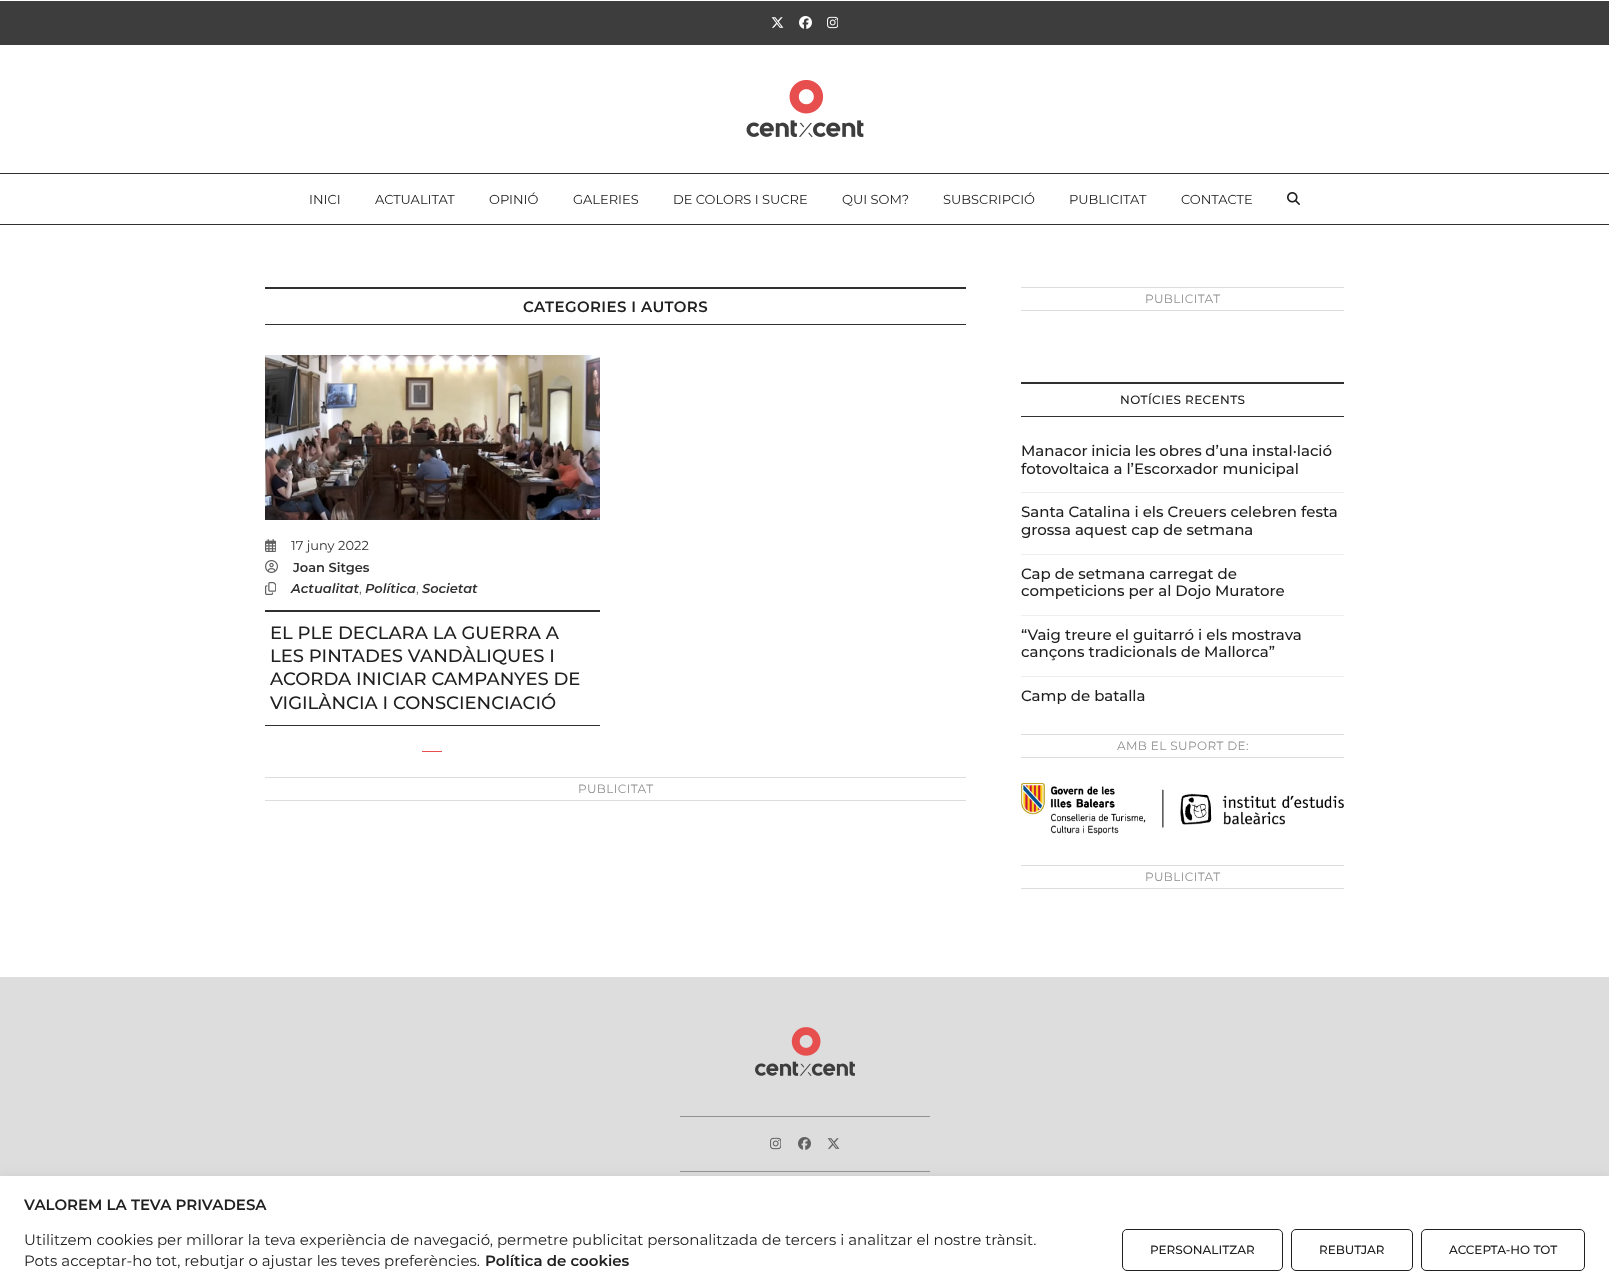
<?xml version="1.0" encoding="UTF-8"?>
<svg xmlns="http://www.w3.org/2000/svg" width="1609" height="1287">
    <defs>
        <filter id="blur1" x="-50%" y="-200%" width="200%" height="500%"><feGaussianBlur stdDeviation="5"/></filter>
    </defs>
    <rect width="100%" height="100%" fill="#FFFFFF"/>
    <rect x="0" y="1" width="1609" height="44" fill="#3D3D3D"/>
    <image x="771" y="17" width="13" height="11" href="img_01.png"/>
    <image x="799" y="16" width="13" height="13" href="img_02.png"/>
    <image x="827" y="16" width="11" height="13" href="img_03.png"/>
    <image x="746" y="80" width="118" height="57" href="img_04.png"/>
    <rect x="0" y="173" width="1609" height="1" fill="#303030"/>
    <rect x="0" y="224" width="1609" height="1" fill="#303030"/>
    <text x="309" y="204" font-family="Montserrat" font-size="13" fill="#202020">INICI</text>
    <text x="375" y="204" font-family="Montserrat" font-size="13" fill="#202020">ACTUALITAT</text>
    <text x="489" y="204" font-family="Montserrat" font-size="13" fill="#202020">OPINIÓ</text>
    <text x="573" y="204" font-family="Montserrat" font-size="13" fill="#202020">GALERIES</text>
    <text x="673" y="204" font-family="Montserrat" font-size="13" fill="#202020">DE COLORS I SUCRE</text>
    <text x="842" y="204" font-family="Montserrat" font-size="13" fill="#202020">QUI SOM?</text>
    <text x="943" y="204" font-family="Montserrat" font-size="13" fill="#202020">SUBSCRIPCIÓ</text>
    <text x="1069" y="204" font-family="Montserrat" font-size="13" fill="#202020">PUBLICITAT</text>
    <text x="1181" y="204" font-family="Montserrat" font-size="13" fill="#202020">CONTACTE</text>
    <image x="1287" y="192" width="13" height="13" href="img_05.png"/>
    <rect x="265" y="287" width="701" height="2" fill="#303030"/>
    <rect x="265" y="324" width="701" height="1" fill="#303030"/>
    <text x="523" y="312" font-family="Montserrat" font-size="15" font-weight="600" letter-spacing="0.4" fill="#202020">CATEGORIES I AUTORS</text>
    <image x="265" y="355" width="335" height="165" href="img_06.png"/>
    <image x="265" y="539" width="11" height="13" href="img_07.png"/>
    <text x="291" y="550" font-family="Montserrat" font-size="13" fill="#303030">17 juny 2022</text>
    <image x="265" y="560" width="13" height="13" href="img_08.png"/>
    <text x="293" y="572" font-family="Montserrat" font-size="13" font-weight="600" fill="#303030">Joan Sitges</text>
    <image x="265" y="582" width="11" height="13" href="img_09.png"/>
    <text x="291" y="593" font-family="Montserrat" font-size="13" font-weight="600" font-style="italic" fill="#303030">Actualitat</text>
    <text x="359" y="593" font-family="Montserrat" font-size="13" fill="#616161">,</text>
    <text x="365" y="593" font-family="Montserrat" font-size="13" font-weight="600" font-style="italic" fill="#303030">Política</text>
    <text x="416" y="593" font-family="Montserrat" font-size="13" fill="#616161">,</text>
    <text x="422" y="593" font-family="Montserrat" font-size="13" font-weight="600" font-style="italic" fill="#303030">Societat</text>
    <rect x="265" y="610" width="335" height="2" fill="#303030"/>
    <rect x="265" y="725" width="335" height="1" fill="#303030"/>
    <text font-family="Montserrat" font-size="18" font-weight="500" fill="#202020">
        <tspan x="270" y="639">EL PLE DECLARA LA GUERRA A</tspan>
        <tspan x="270" y="662">LES PINTADES VANDÀLIQUES I</tspan>
        <tspan x="270" y="685">ACORDA INICIAR CAMPANYES DE</tspan>
        <tspan x="270" y="709">VIGILÀNCIA I CONSCIENCIACIÓ</tspan>
    </text>
    <rect x="422" y="751" width="20" height="1" fill="#E74E4E"/>
    <rect x="265" y="777" width="701" height="1" fill="#DDDDDD"/>
    <rect x="265" y="800" width="701" height="1" fill="#DDDDDD"/>
    <text x="578" y="793" font-family="Montserrat" font-size="12" letter-spacing="0.4" fill="#909090">PUBLICITAT</text>
    <rect x="1021" y="287" width="323" height="1" fill="#DDDDDD"/>
    <rect x="1021" y="310" width="323" height="1" fill="#DDDDDD"/>
    <text x="1145" y="303" font-family="Montserrat" font-size="12" letter-spacing="0.4" fill="#909090">PUBLICITAT</text>
    <rect x="1021" y="382" width="323" height="2" fill="#303030"/>
    <rect x="1021" y="416" width="323" height="1" fill="#303030"/>
    <text x="1120" y="404" font-family="Montserrat" font-size="12" font-weight="500" letter-spacing="0.4" fill="#202020">NOTÍCIES RECENTS</text>
    <text font-family="Montserrat" font-size="15" font-weight="500" fill="#202020">
        <tspan x="1021" y="456" word-spacing="-0.5">Manacor inicia les obres d’una instal·lació</tspan>
        <tspan x="1021" y="474">fotovoltaica a l’Escorxador municipal</tspan>
    </text>
    <rect x="1021" y="492" width="323" height="1" fill="#EEEEEE"/>
    <text font-family="Montserrat" font-size="15" font-weight="500" fill="#202020">
        <tspan x="1021" y="517">Santa Catalina i els Creuers celebren festa</tspan>
        <tspan x="1021" y="535">grossa aquest cap de setmana</tspan>
    </text>
    <rect x="1021" y="554" width="323" height="1" fill="#EEEEEE"/>
    <text font-family="Montserrat" font-size="15" font-weight="500" fill="#202020">
        <tspan x="1021" y="579">Cap de setmana carregat de</tspan>
        <tspan x="1021" y="596">competicions per al Dojo Muratore</tspan>
    </text>
    <rect x="1021" y="615" width="323" height="1" fill="#EEEEEE"/>
    <text font-family="Montserrat" font-size="15" font-weight="500" fill="#202020">
        <tspan x="1021" y="640">“Vaig treure el guitarró i els mostrava</tspan>
        <tspan x="1021" y="657">cançons tradicionals de Mallorca”</tspan>
    </text>
    <rect x="1021" y="676" width="323" height="1" fill="#EEEEEE"/>
    <text x="1021" y="701" font-family="Montserrat" font-size="15" font-weight="500" fill="#202020">Camp de batalla</text>
    <rect x="1021" y="734" width="323" height="1" fill="#DDDDDD"/>
    <rect x="1021" y="757" width="323" height="1" fill="#DDDDDD"/>
    <text x="1117" y="750" font-family="Montserrat" font-size="12" letter-spacing="0.4" fill="#909090">AMB EL SUPORT DE:</text>
    <image x="1021" y="783" width="323" height="52" href="img_10.png"/>
    <rect x="1021" y="865" width="323" height="1" fill="#DDDDDD"/>
    <rect x="1021" y="888" width="323" height="1" fill="#DDDDDD"/>
    <text x="1145" y="881" font-family="Montserrat" font-size="12" letter-spacing="0.4" fill="#909090">PUBLICITAT</text>
    <rect x="0" y="977" width="1609" height="199" fill="#DDDDDD"/>
    <image x="755" y="1027" width="100" height="49" href="img_11.png"/>
    <rect x="680" y="1116" width="250" height="1" fill="#909090"/>
    <image x="770" y="1137" width="11" height="13" href="img_12.png"/>
    <image x="798" y="1137" width="13" height="13" href="img_13.png"/>
    <image x="827" y="1138" width="13" height="11" href="img_14.png"/>
    <rect x="680" y="1171" width="250" height="1" fill="#909090"/>
    <rect x="0" y="1175" width="1609" height="111" fill="#ACABAB" fill-opacity="0.3" filter="url(#blur1)"/>
    <rect x="0" y="1176" width="1609" height="111" fill="#FFFFFF"/>
    <text x="24" y="1210" font-family="Montserrat" font-size="15" font-weight="600" fill="#202020">VALOREM LA TEVA PRIVADESA</text>
    <text font-family="Montserrat" font-size="15" fill="#202020">
        <tspan x="24" y="1245">Utilitzem cookies per millorar la teva experiència de navegació, permetre publicitat personalitzada de tercers i analitzar el nostre trànsit.</tspan>
        <tspan x="24" y="1266">Pots acceptar-ho tot, rebutjar o ajustar les teves preferències.</tspan>
    </text>
    <text x="485" y="1266" font-family="Montserrat" font-size="15" font-weight="600" fill="#202020">Política de cookies</text>
    <rect x="1122.5" y="1229.5" width="160" height="41" rx="4.5" fill="none" stroke="#202020"/>
    <text x="1150" y="1254" font-family="Montserrat" font-size="12" font-weight="500" fill="#202020">PERSONALITZAR</text>
    <rect x="1291.5" y="1229.5" width="121" height="41" rx="4.5" fill="none" stroke="#202020"/>
    <text x="1319" y="1254" font-family="Montserrat" font-size="12" font-weight="500" fill="#202020">REBUTJAR</text>
    <rect x="1421.5" y="1229.5" width="163" height="41" rx="4.5" fill="none" stroke="#202020"/>
    <text x="1449" y="1254" font-family="Montserrat" font-size="12" font-weight="500" fill="#202020">ACCEPTA-HO TOT</text>
</svg>
